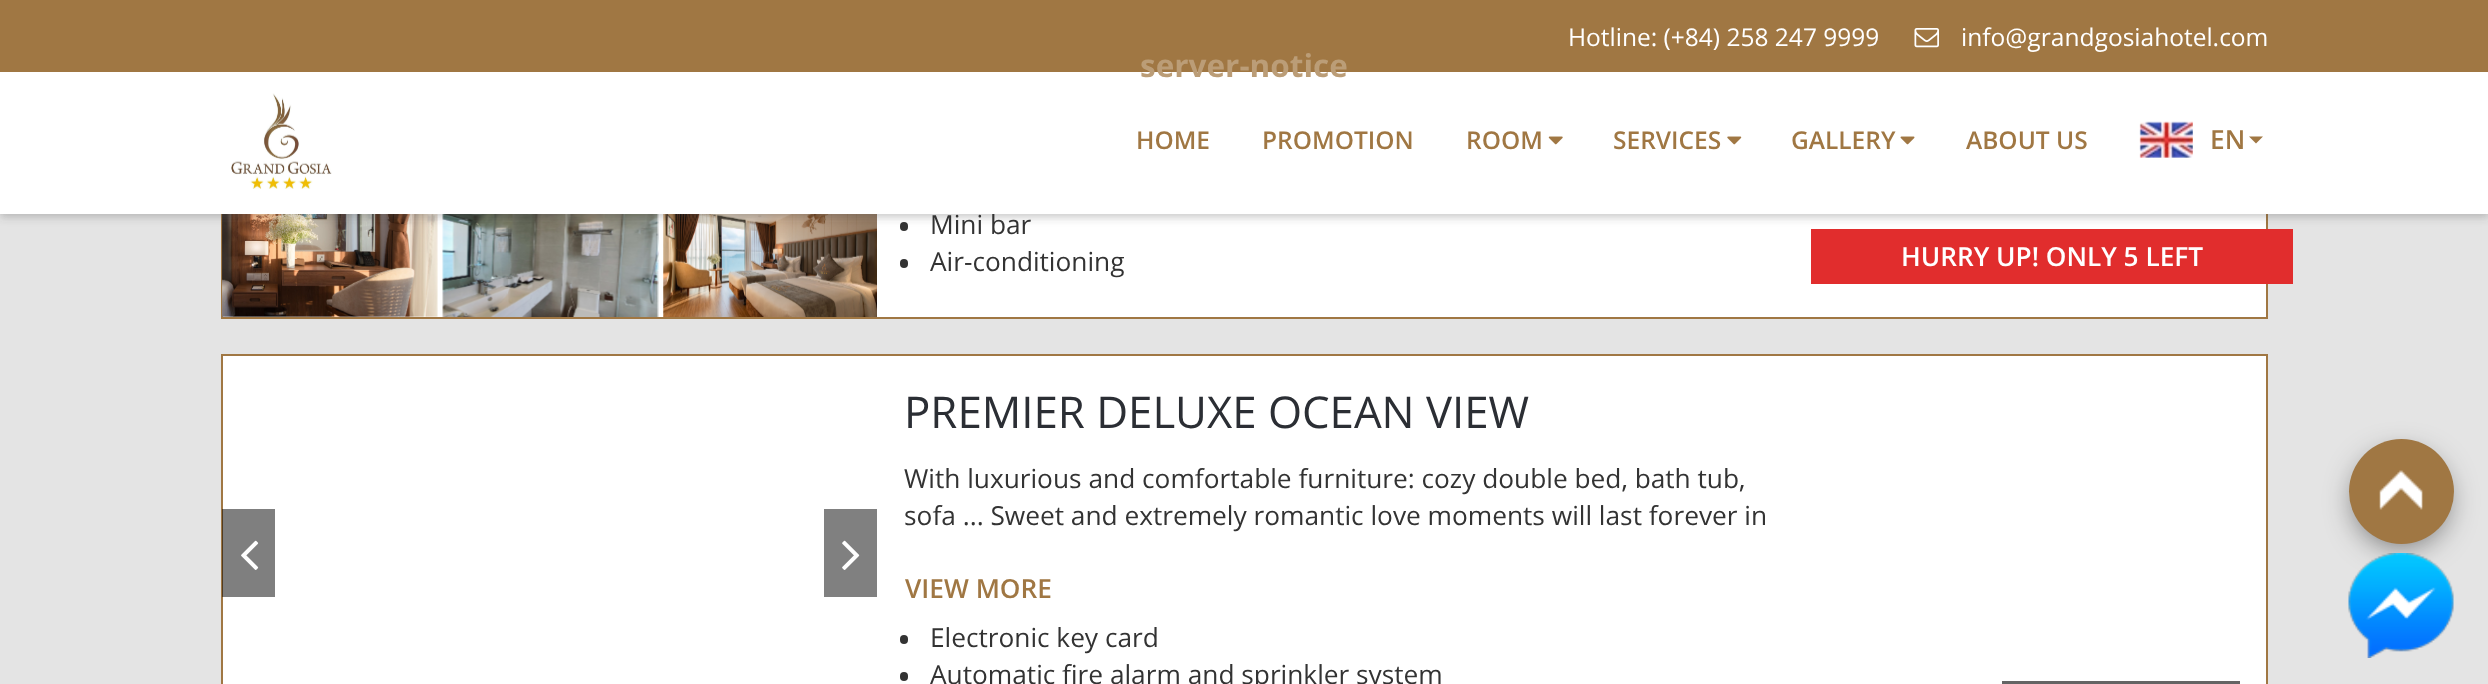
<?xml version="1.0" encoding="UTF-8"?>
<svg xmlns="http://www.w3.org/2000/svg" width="2488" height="684">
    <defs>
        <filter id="blur1" x="-50%" y="-200%" width="200%" height="500%"><feGaussianBlur stdDeviation="4.5"/></filter>
        <filter id="blur2" x="-50%" y="-200%" width="200%" height="500%"><feGaussianBlur stdDeviation="16"/></filter>
    </defs>
    <rect width="100%" height="100%" fill="#E4E4E4"/>
    <rect x="223" y="214" width="2043" height="103" fill="#FFFFFF"/>
    <rect x="222" y="-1" width="2045" height="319" fill="none" stroke="#A07743" stroke-width="2"/>
    <image x="222" y="214" width="216" height="103" href="img_07.png"/>
    <image x="442" y="214" width="217" height="103" href="img_08.png"/>
    <image x="663" y="214" width="214" height="103" href="img_09.png"/>
    <rect x="900" y="222" width="8" height="9" rx="4" fill="#333333"/>
    <rect x="1811" y="229" width="482" height="55" fill="#E12D2D"/>
    <rect x="0" y="4" width="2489" height="213" fill="#444444" fill-opacity="0.3" filter="url(#blur1)"/>
    <rect x="0" y="72" width="2488" height="142" fill="#FFFFFF"/>
    <rect x="0" y="0" width="2488" height="72" fill="#A07743"/>
    <text x="1568" y="46" font-family="Open Sans" font-size="24.5" fill="#FFFFFF">Hotline: (+84) 258 247 9999</text>
    <image x="1914" y="28" width="25" height="20" href="img_01.png"/>
    <text x="1961" y="46" font-family="Open Sans" font-size="24.5" fill="#FFFFFF">info@grandgosiahotel.com</text>
    <image x="231" y="93" width="101" height="96" href="img_02.png"/>
    <text x="1136" y="149" font-family="Open Sans" font-size="24.5" font-weight="600" fill="#A07743">HOME</text>
    <text x="1262" y="149" font-family="Open Sans" font-size="24.5" font-weight="600" fill="#A07743">PROMOTION</text>
    <text x="1466" y="149" font-family="Open Sans" font-size="24.5" font-weight="600" fill="#A07743">ROOM</text>
    <image x="1548" y="136" width="15" height="9" href="img_03.png"/>
    <text x="1613" y="149" font-family="Open Sans" font-size="24.5" font-weight="600" fill="#A07743">SERVICES</text>
    <image x="1727" y="136" width="15" height="9" href="img_04.png"/>
    <text x="1791" y="149" font-family="Open Sans" font-size="24.5" font-weight="600" fill="#A07743">GALLERY</text>
    <image x="1900" y="136" width="15" height="9" href="img_05.png"/>
    <text x="1966" y="149" font-family="Open Sans" font-size="24.5" font-weight="600" fill="#A07743">ABOUT US</text>
    <image x="2139" y="121" width="54" height="37" href="img_06.png"/>
    <text x="2210" y="149" font-family="Open Sans" font-size="26.25" font-weight="600" fill="#A07743">EN</text>
    <path d="M 2249 136.5 H 2263 L 2256 143.5 Z" fill="#A07743"/>
    <text x="1140" y="77" font-family="Open Sans" font-size="31.5" font-weight="700" fill="#BB9D77">server-notice</text>
    <text x="930" y="234" font-family="Open Sans" font-size="26.25" fill="#333333">Mini bar</text>
    <rect x="900" y="259" width="8" height="9" rx="4" fill="#333333"/>
    <text x="930" y="271" font-family="Open Sans" font-size="26.25" fill="#333333">Air-conditioning</text>
    <text x="1901" y="266" font-family="Open Sans" font-size="26.25" font-weight="600" fill="#FFFFFF">HURRY UP! ONLY 5 LEFT</text>
    <rect x="222" y="355" width="2045" height="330" fill="#FFFFFF" stroke="#A07743" stroke-width="2"/>
    <rect x="222" y="509" width="53" height="88" fill="#000000" fill-opacity="0.5"/>
    <image x="241" y="540" width="18" height="30" href="img_10.png"/>
    <rect x="824" y="509" width="53" height="88" fill="#808080"/>
    <image x="842" y="540" width="18" height="30" href="img_11.png"/>
    <text x="904" y="428" font-family="Open Sans" font-size="43.75" fill="#2B2E34">PREMIER DELUXE OCEAN VIEW</text>
    <text font-family="Open Sans" font-size="26.25" fill="#333333">
        <tspan x="904" y="488">With luxurious and comfortable furniture: cozy double bed, bath tub,</tspan>
        <tspan x="904" y="525">sofa ... Sweet and extremely romantic love moments will last forever in</tspan>
    </text>
    <text x="905" y="598" font-family="Open Sans" font-size="26.25" font-weight="600" fill="#A07743">VIEW MORE</text>
    <rect x="900" y="635" width="8" height="9" rx="4" fill="#333333"/>
    <text x="930" y="647" font-family="Open Sans" font-size="26.25" fill="#333333">Electronic key card</text>
    <rect x="900" y="672" width="8" height="9" rx="4" fill="#333333"/>
    <text x="930" y="684" font-family="Open Sans" font-size="26.25" fill="#333333">Automatic fire alarm and sprinkler system</text>
    <rect x="2002" y="681" width="238" height="3" fill="#646464"/>
    <rect x="2357" y="457" width="88" height="87" rx="43.5" fill="#000000" fill-opacity="0.6" filter="url(#blur2)"/>
    <circle cx="2401.5" cy="491.5" r="52.5" fill="#A07743"/>
    <image x="2379" y="470" width="44" height="40" href="img_12.png"/>
    <image x="2348" y="553" width="106" height="105" href="img_13.png"/>
</svg>
